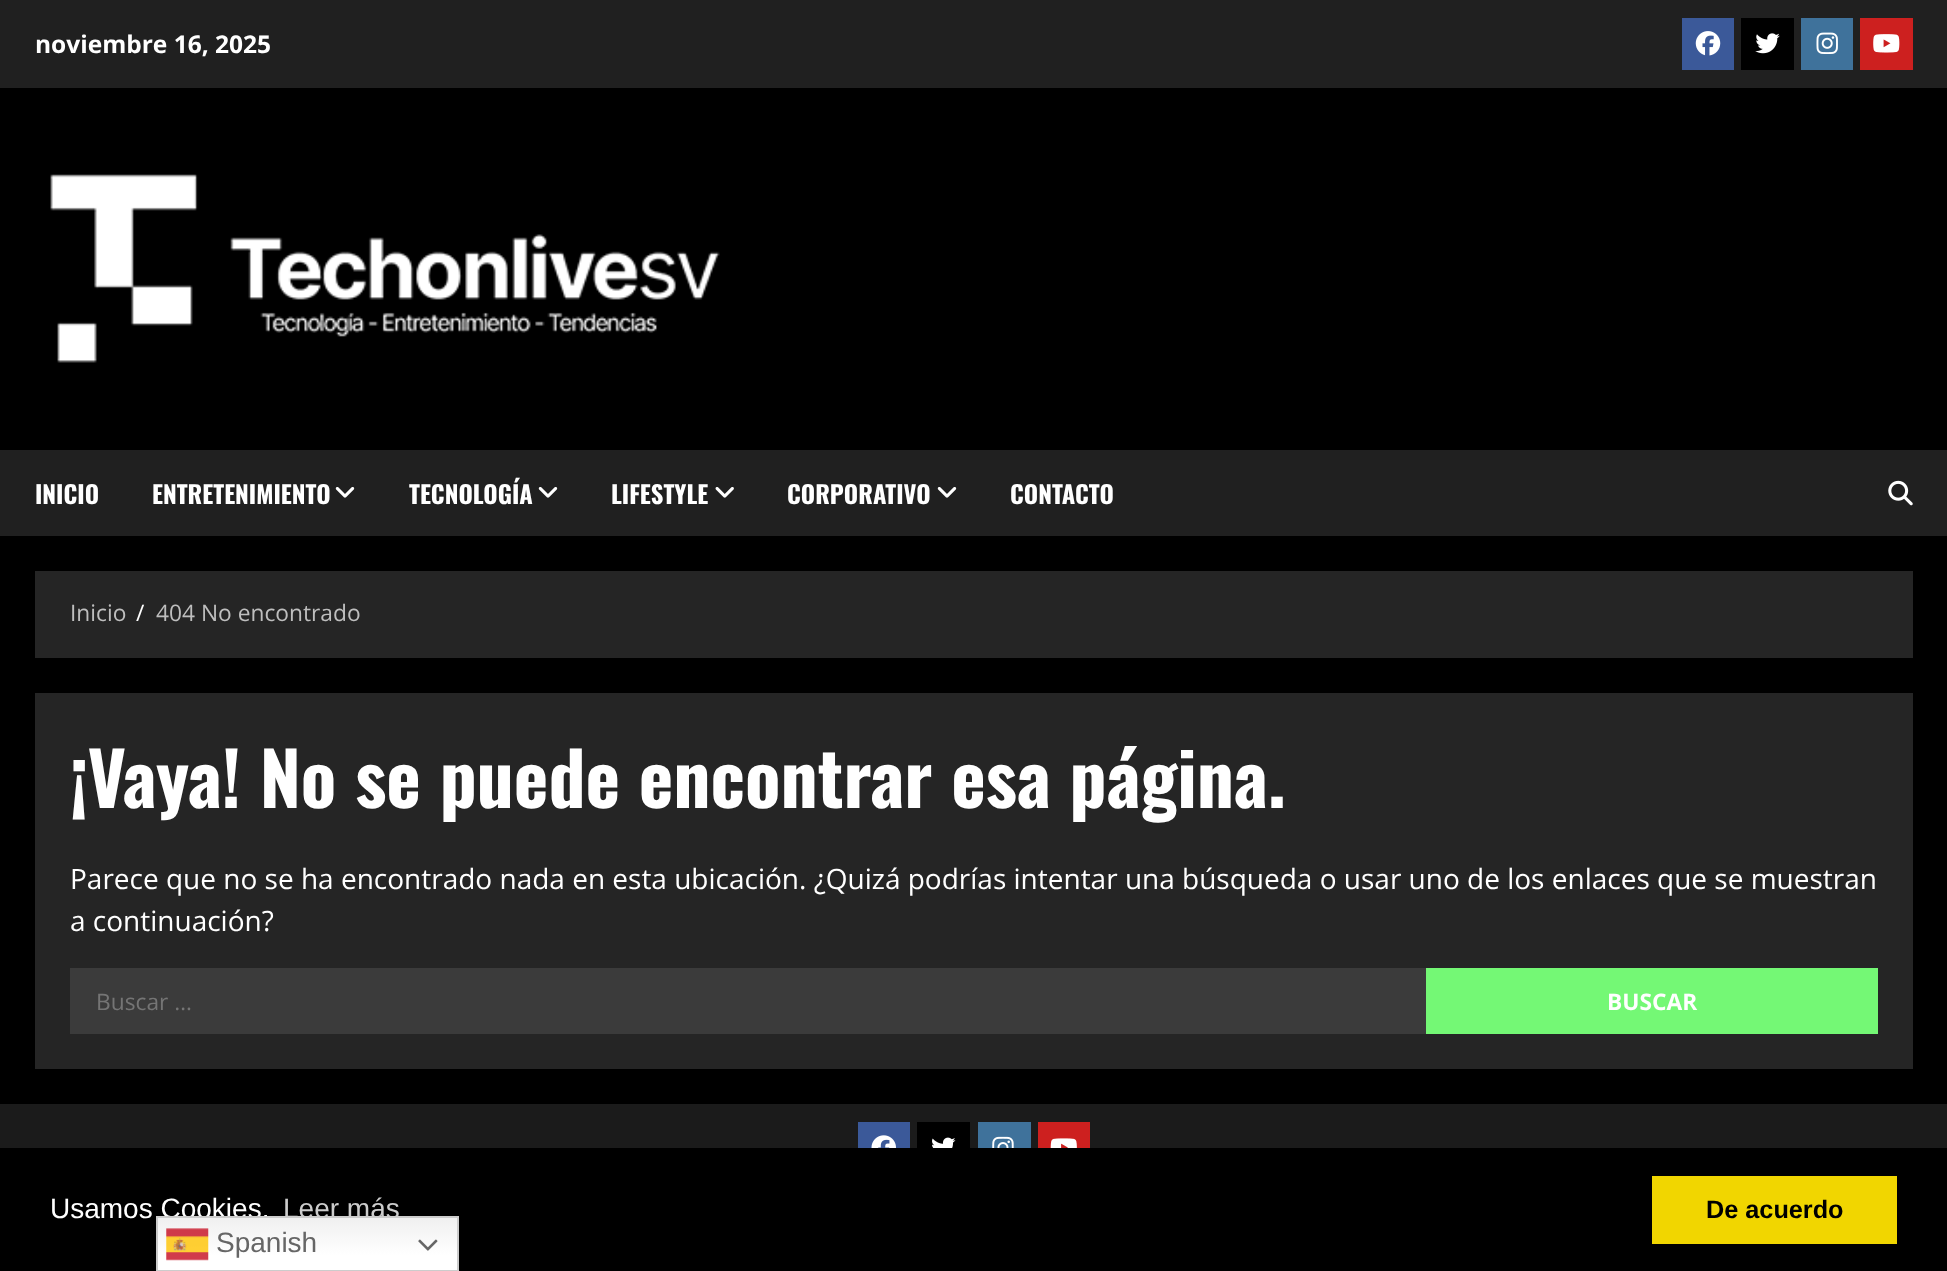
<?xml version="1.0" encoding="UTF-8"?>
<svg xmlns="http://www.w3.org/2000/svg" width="1947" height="1271">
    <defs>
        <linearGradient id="g1" gradientUnits="userSpaceOnUse" x1="307" y1="1216" x2="307" y2="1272"><stop offset="0" stop-color="#EFEFEF"/><stop offset="0.7" stop-color="#FFFFFF"/></linearGradient>
    </defs>
    <rect width="100%" height="100%" fill="#000000"/>
    <rect x="0" y="0" width="1947" height="88" fill="#202020"/>
    <text x="35" y="53" font-family="Open Sans" font-size="24.5" font-weight="700" fill="#FFFFFF">noviembre 16, 2025</text>
    <rect x="1682" y="18" width="52" height="52" fill="#3B5999"/>
    <image x="1695" y="31" width="26" height="25" href="img_01.png"/>
    <rect x="1741" y="18" width="53" height="52" fill="#000000"/>
    <image x="1755" y="33" width="25" height="21" href="img_02.png"/>
    <rect x="1801" y="18" width="52" height="52" fill="#3F729B"/>
    <image x="1816" y="32" width="22" height="22" href="img_03.png"/>
    <rect x="1860" y="18" width="53" height="52" fill="#CD201F"/>
    <image x="1873" y="34" width="27" height="19" href="img_04.png"/>
    <image x="50" y="174" width="670" height="189" href="img_05.png"/>
    <rect x="0" y="450" width="1947" height="86" fill="#202020"/>
    <text x="35" y="504" font-family="Oswald" font-size="24.5" font-weight="700" fill="#FFFFFF">INICIO</text>
    <text x="152" y="504" font-family="Oswald" font-size="24.5" font-weight="700" fill="#FFFFFF">ENTRETENIMIENTO</text>
    <image x="335" y="487" width="20" height="11" href="img_06.png"/>
    <text x="409" y="504" font-family="Oswald" font-size="24.5" font-weight="700" fill="#FFFFFF">TECNOLOGÍA</text>
    <image x="538" y="487" width="20" height="11" href="img_06.png"/>
    <text x="611" y="504" font-family="Oswald" font-size="24.5" font-weight="700" fill="#FFFFFF">LIFESTYLE</text>
    <image x="715" y="487" width="19" height="11" href="img_07.png"/>
    <text x="787" y="504" font-family="Oswald" font-size="24.5" font-weight="700" fill="#FFFFFF">CORPORATIVO</text>
    <image x="937" y="487" width="20" height="11" href="img_06.png"/>
    <text x="1010" y="504" font-family="Oswald" font-size="24.5" font-weight="700" fill="#FFFFFF">CONTACTO</text>
    <image x="1888" y="480" width="25" height="26" href="img_08.png"/>
    <rect x="35" y="571" width="1878" height="87" fill="#252525"/>
    <text x="70" y="621" font-family="Open Sans" font-size="22.75" fill="#BEBEBE">Inicio</text>
    <text x="136" y="621" font-family="Open Sans" font-size="22.75" fill="#FFFFFF">/</text>
    <text x="156" y="621" font-family="Open Sans" font-size="22.75" fill="#BEBEBE">404 No encontrado</text>
    <rect x="35" y="693" width="1878" height="376" fill="#252525"/>
    <text x="70" y="808" font-family="Oswald" font-size="73.5" font-weight="700" fill="#FFFFFF">¡Vaya! No se puede encontrar esa página.</text>
    <text font-family="Open Sans" font-size="28" fill="#FFFFFF">
        <tspan x="70" y="889">Parece que no se ha encontrado nada en esta ubicación. ¿Quizá podrías intentar una búsqueda o usar uno de los enlaces que se muestran</tspan>
        <tspan x="70" y="931">a continuación?</tspan>
    </text>
    <rect x="70" y="968" width="1356" height="66" fill="#3B3B3B"/>
    <text x="96" y="1010" font-family="Open Sans" font-size="22.75" fill="#757575">Buscar …</text>
    <rect x="1426" y="968" width="452" height="66" fill="#74F875"/>
    <text x="1607" y="1010" font-family="Open Sans" font-size="22.75" font-weight="700" fill="#FFFFFF">BUSCAR</text>
    <rect x="0" y="1104" width="1947" height="44" fill="#1B1B1B"/>
    <rect x="858" y="1122" width="52" height="26" fill="#3B5999"/>
    <image x="871" y="1135" width="25" height="13" href="img_09.png"/>
    <rect x="917" y="1122" width="53" height="26" fill="#000000"/>
    <image x="932" y="1137" width="24" height="11" href="img_10.png"/>
    <rect x="978" y="1122" width="53" height="26" fill="#3F729B"/>
    <image x="992" y="1136" width="22" height="12" href="img_11.png"/>
    <rect x="1038" y="1122" width="52" height="26" fill="#CD201F"/>
    <image x="1050" y="1138" width="27" height="10" href="img_12.png"/>
    <text x="50" y="1218" font-family="Liberation Sans" font-size="28" fill="#FFFFFF">Usamos Cookies.</text>
    <text x="283" y="1218" font-family="Liberation Sans" font-size="28" fill="#CCCCCC">Leer más</text>
    <rect x="1652" y="1176" width="245" height="68" fill="#F1D600"/>
    <text x="1706" y="1218" font-family="Liberation Sans" font-size="25.25" font-weight="700" fill="#000000">De acuerdo</text>
    <rect x="158" y="1218" width="299" height="52" fill="url(#g1)"/>
    <rect x="157" y="1217" width="301" height="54" fill="none" stroke="#CCCCCC" stroke-width="2"/>
    <image x="166" y="1228" width="43" height="33" href="img_13.png"/>
    <text x="216" y="1252" font-family="Liberation Sans" font-size="28" fill="#666666">Spanish</text>
    <image x="418" y="1239" width="20" height="12" href="img_14.png"/>
</svg>
